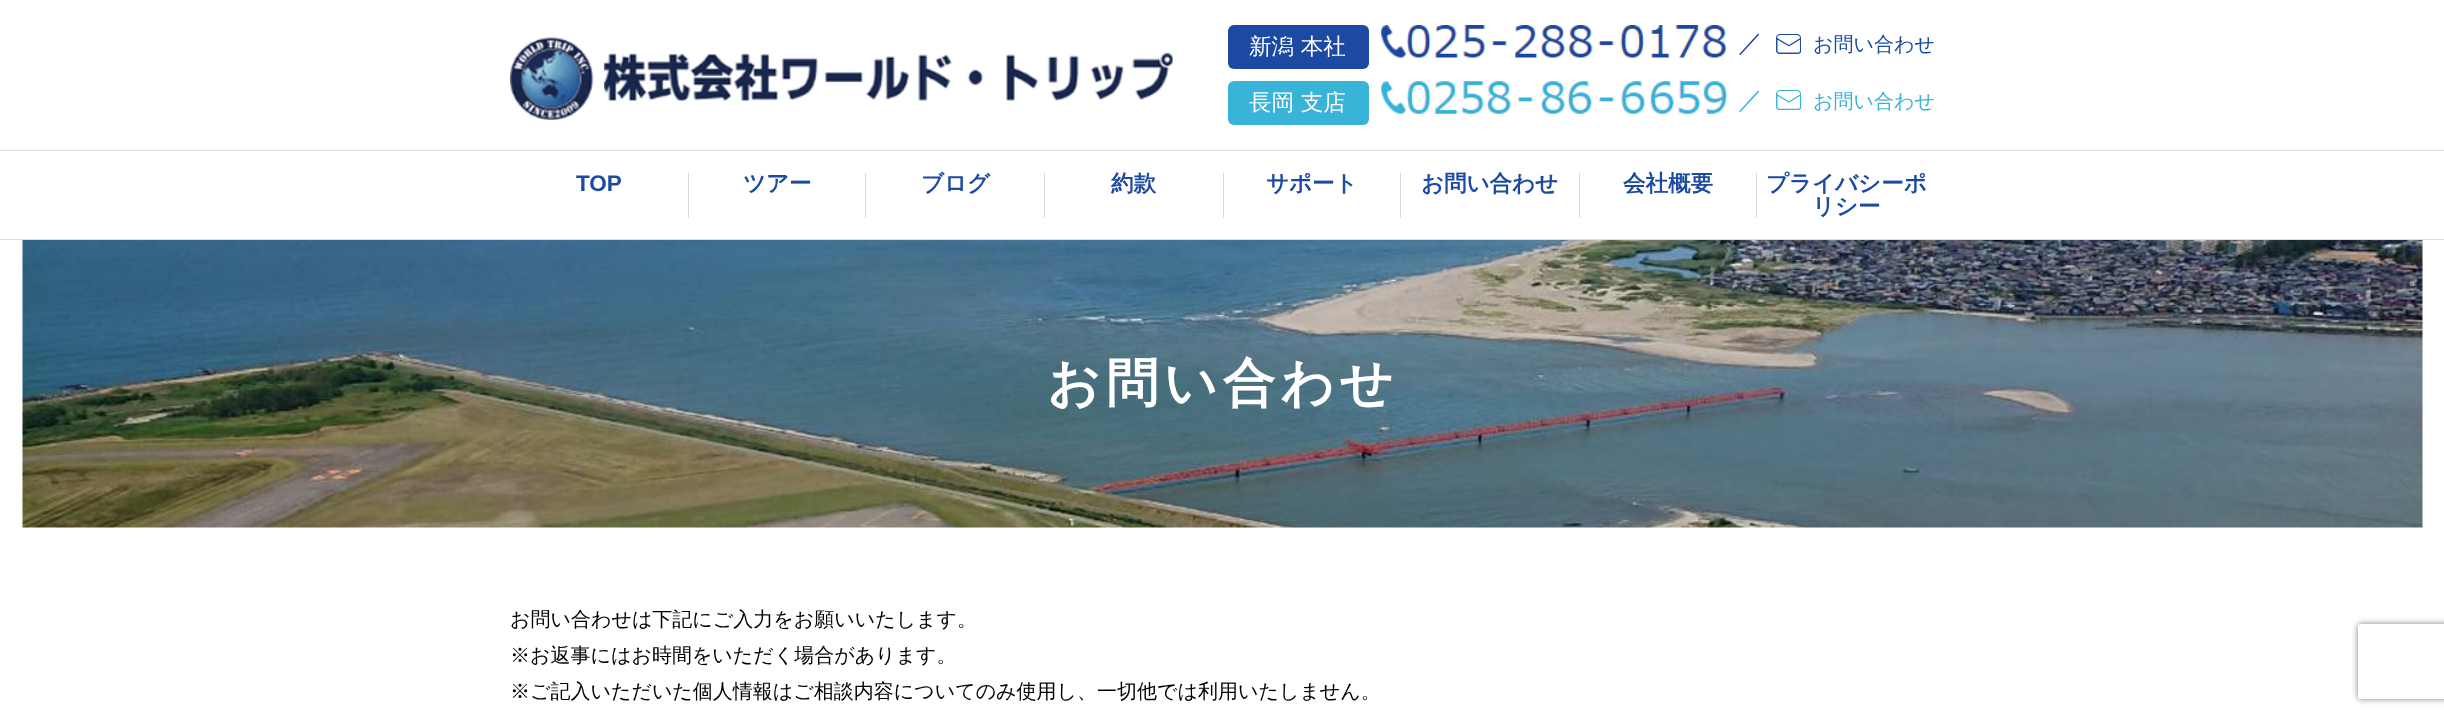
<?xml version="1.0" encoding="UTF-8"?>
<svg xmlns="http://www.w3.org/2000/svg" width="2444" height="716">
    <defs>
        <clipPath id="clip1"><path d="M 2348 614 H 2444 V 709 H 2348 Z M 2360.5 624 H 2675.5 C 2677 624 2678 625 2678 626.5 V 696.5 C 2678 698 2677 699 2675.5 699 H 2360.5 C 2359 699 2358 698 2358 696.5 V 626.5 C 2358 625 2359 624 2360.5 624 Z" clip-rule="evenodd"/></clipPath>
        <filter id="blur1" x="-50%" y="-200%" width="200%" height="500%"><feGaussianBlur stdDeviation="3"/></filter>
    </defs>
    <rect width="100%" height="100%" fill="#FFFFFF"/>
    <image x="510" y="37" width="663" height="83" href="img_01.png"/>
    <rect x="1228" y="25" width="141" height="44" rx="6" fill="#1C49A1"/>
    <text x="1249" y="54" font-family="WenQuanYi Zen Hei" font-size="22.5" font-weight="500" fill="#FFFFFF">新潟 本社</text>
    <image x="1381" y="25" width="346" height="33" href="img_02.png"/>
    <text x="1738" y="51" font-family="WenQuanYi Zen Hei" font-size="25" font-weight="500" fill="#1C49A1">／</text>
    <image x="1776" y="34" width="25" height="20" href="img_03.png"/>
    <text x="1813" y="51" font-family="WenQuanYi Zen Hei" font-size="20" font-weight="500" fill="#1C49A1">お問い合わせ</text>
    <rect x="1228" y="81" width="141" height="44" rx="6" fill="#3AB3D9"/>
    <text x="1249" y="110" font-family="WenQuanYi Zen Hei" font-size="22.5" font-weight="500" fill="#FFFFFF">長岡 支店</text>
    <image x="1381" y="81" width="346" height="33" href="img_04.png"/>
    <text x="1738" y="108" font-family="WenQuanYi Zen Hei" font-size="25" font-weight="500" fill="#3AB3D9">／</text>
    <image x="1776" y="90" width="25" height="20" href="img_05.png"/>
    <text x="1813" y="108" font-family="WenQuanYi Zen Hei" font-size="20" font-weight="500" fill="#3AB3D9">お問い合わせ</text>
    <rect x="0" y="150" width="2444" height="1" fill="#D9D9D9"/>
    <rect x="0" y="239" width="2444" height="1" fill="#D9D9D9"/>
    <rect x="688" y="173" width="1" height="45" fill="#D9D9D9"/>
    <text x="576" y="191" font-family="Liberation Sans" font-size="22.5" font-weight="700" fill="#1C49A1">TOP</text>
    <rect x="865" y="173" width="1" height="45" fill="#D9D9D9"/>
    <text x="743" y="191" font-family="WenQuanYi Zen Hei" font-size="22.5" font-weight="700" fill="#1C49A1">ツアー</text>
    <rect x="1044" y="173" width="1" height="45" fill="#D9D9D9"/>
    <text x="921" y="191" font-family="WenQuanYi Zen Hei" font-size="22.5" font-weight="700" fill="#1C49A1">ブログ</text>
    <rect x="1223" y="173" width="1" height="45" fill="#D9D9D9"/>
    <text x="1111" y="191" font-family="WenQuanYi Zen Hei" font-size="22.5" font-weight="700" fill="#1C49A1">約款</text>
    <rect x="1400" y="173" width="1" height="45" fill="#D9D9D9"/>
    <text x="1266" y="191" font-family="WenQuanYi Zen Hei" font-size="22.5" font-weight="700" fill="#1C49A1">サポート</text>
    <rect x="1579" y="173" width="1" height="45" fill="#D9D9D9"/>
    <text x="1421" y="191" font-family="WenQuanYi Zen Hei" font-size="22.5" font-weight="700" fill="#1C49A1">お問い合わせ</text>
    <rect x="1756" y="173" width="1" height="45" fill="#D9D9D9"/>
    <text x="1623" y="191" font-family="WenQuanYi Zen Hei" font-size="22.5" font-weight="700" fill="#1C49A1">会社概要</text>
    <text x="1766" y="191" font-family="WenQuanYi Zen Hei" font-size="22.5" font-weight="700" fill="#1C49A1">プライバシーポ</text>
    <text x="1812" y="214" font-family="WenQuanYi Zen Hei" font-size="22.5" font-weight="700" fill="#1C49A1">リシー</text>
    <image x="22" y="240" width="2401" height="288" href="img_06.png"/>
    <text x="1047" y="401" font-family="WenQuanYi Zen Hei" font-size="52.5" font-weight="700" letter-spacing="5.25" fill="#FFFFFF">お問い合わせ</text>
    <text font-family="WenQuanYi Zen Hei" font-size="20" font-weight="500" fill="#000000">
        <tspan x="510" y="626">お問い合わせは下記にご入力をお願いいたします。</tspan>
        <tspan x="510" y="662">※お返事にはお時間をいただく場合があります。</tspan>
        <tspan x="510" y="698">※ご記入いただいた個人情報はご相談内容についてのみ使用し、一切他では利用いたしません。</tspan>
    </text>
    <g clip-path="url(#clip1)">
        <rect x="2358" y="624" width="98" height="75" rx="2.5" fill="#808080" filter="url(#blur1)"/>
    </g>
</svg>
